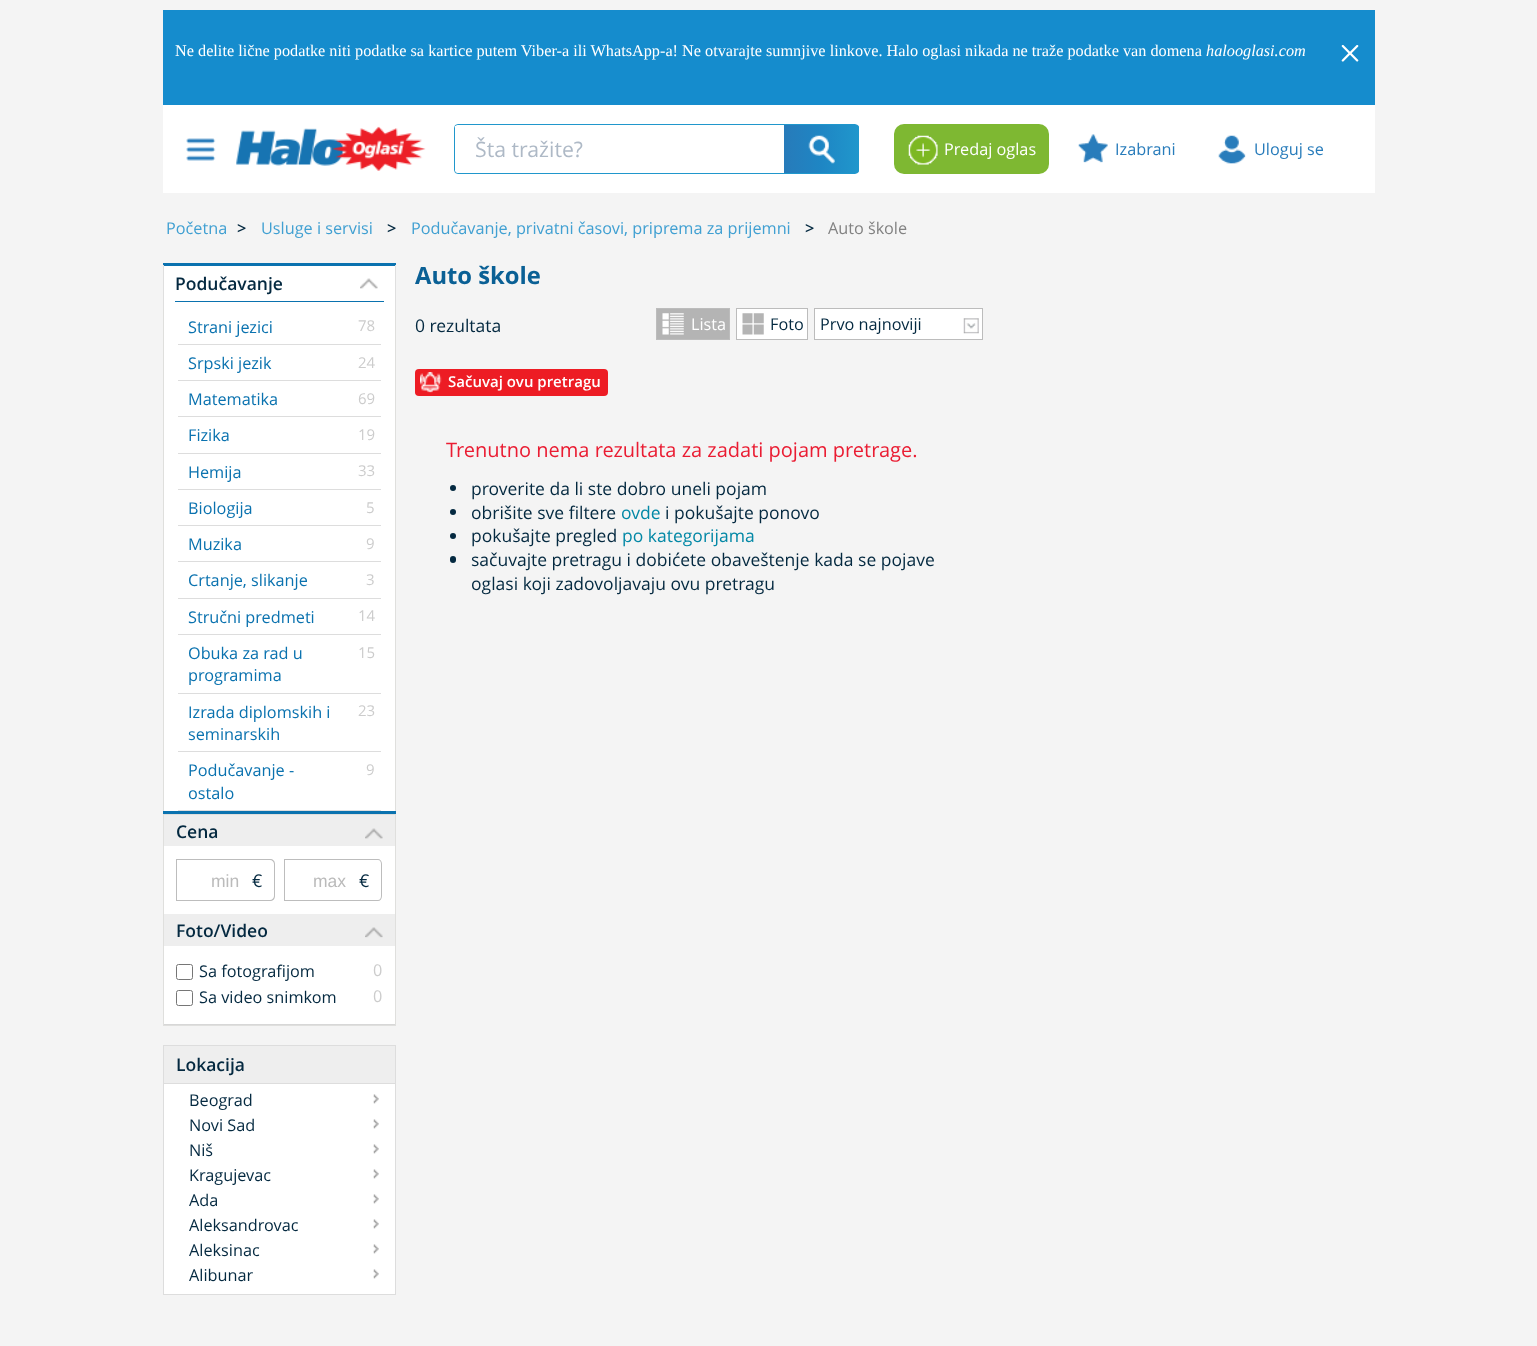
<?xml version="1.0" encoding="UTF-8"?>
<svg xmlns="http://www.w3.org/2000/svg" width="1537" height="1346">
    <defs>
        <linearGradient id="g1" gradientUnits="userSpaceOnUse" x1="784" y1="149" x2="859" y2="149"><stop offset="0" stop-color="#277BBA"/><stop offset="0.5" stop-color="#1E86C4"/><stop offset="1" stop-color="#2097CC"/></linearGradient>
    </defs>
    <rect width="100%" height="100%" fill="#F4F4F4"/>
    <rect x="163" y="105" width="1212" height="88" fill="#FFFFFF"/>
    <rect x="163" y="10" width="1212" height="95" fill="#158CCD"/>
    <text x="175" y="56" font-family="Liberation Serif" font-size="16.25" fill="#FFFFFF">Ne delite lične podatke niti podatke sa kartice putem Viber-a ili WhatsApp-a! Ne otvarajte sumnjive linkove. Halo oglasi nikada ne traže podatke van domena</text>
    <text x="1206" y="56" font-family="Liberation Serif" font-size="16.25" font-style="italic" fill="#FFFFFF">halooglasi.com</text>
    <image x="1341" y="45" width="18" height="17" href="img_01.png"/>
    <image x="186" y="138" width="30" height="23" href="img_02.png"/>
    <image x="236" y="126" width="190" height="45" href="img_03.png"/>
    <rect x="454.5" y="124.5" width="404" height="49" rx="3.5" fill="none" stroke="#2097CC"/>
    <rect x="455" y="125" width="329" height="48" rx="4" fill="#FFFFFF"/>
    <rect x="455" y="126" width="1" height="45" fill="#FFFFFF"/>
    <text x="475" y="157" font-family="Open Sans" font-size="21.25" fill="#AEB9C6">Šta tražite?</text>
    <path d="M 784 125 H 856.5 C 858 125 859 126 859 127.5 V 170.5 C 859 172 858 173 856.5 173 H 784 Z" fill="url(#g1)"/>
    <image x="808" y="135" width="27" height="29" href="img_04.png"/>
    <rect x="894" y="124" width="155" height="50" rx="10" fill="#7EB832"/>
    <image x="908" y="135" width="30" height="30" href="img_05.png"/>
    <text x="944" y="155" font-family="Open Sans" font-size="16.25" fill="#FFFFFF">Predaj oglas</text>
    <image x="1078" y="134" width="30" height="29" href="img_06.png"/>
    <text x="1115" y="155" font-family="Open Sans" font-size="16.25" fill="#287CBB">Izabrani</text>
    <image x="1218" y="135" width="28" height="29" href="img_07.png"/>
    <text x="1254" y="155" font-family="Open Sans" font-size="16.25" fill="#287CBB">Uloguj se</text>
    <text x="166" y="234" font-family="Open Sans" font-size="16.25" fill="#41A0D2">Početna</text>
    <text x="237" y="234" font-family="Open Sans" font-size="16.25" font-weight="600" fill="#042940">&gt;</text>
    <text x="261" y="234" font-family="Open Sans" font-size="16.25" fill="#41A0D2">Usluge i servisi</text>
    <text x="387" y="234" font-family="Open Sans" font-size="16.25" font-weight="600" fill="#042940">&gt;</text>
    <text x="411" y="234" font-family="Open Sans" font-size="16.25" fill="#41A0D2">Podučavanje, privatni časovi, priprema za prijemni</text>
    <text x="805" y="234" font-family="Open Sans" font-size="16.25" font-weight="600" fill="#042940">&gt;</text>
    <text x="828" y="234" font-family="Open Sans" font-size="16.25" fill="#828282">Auto škole</text>
    <rect x="164" y="266" width="231" height="545" fill="#FFFFFF"/>
    <rect x="163" y="263" width="233" height="3" fill="#0A72AF"/>
    <rect x="163" y="811" width="233" height="3" fill="#0A72AF"/>
    <rect x="395" y="265" width="1" height="44" fill="#DFDFDF"/>
    <rect x="163" y="265" width="1" height="44" fill="#DFDFDF"/>
    <text x="175" y="290" font-family="Open Sans" font-size="17.5" font-weight="600" fill="#042940">Podučavanje</text>
    <image x="360" y="278" width="18" height="11" href="img_08.png"/>
    <rect x="175" y="301" width="209" height="1" fill="#0A72AF"/>
    <rect x="395" y="309" width="1" height="502" fill="#DFDFDD"/>
    <rect x="163" y="309" width="1" height="502" fill="#DFDFDD"/>
    <rect x="178" y="344" width="203" height="1" fill="#DDDDDD"/>
    <text x="188" y="333" font-family="Open Sans" font-size="16.25" fill="#0A72AF">Strani jezici</text>
    <text x="358" y="331" font-family="Open Sans" font-size="15" fill="#CCCCCC">78</text>
    <rect x="178" y="380" width="203" height="1" fill="#DDDDDD"/>
    <text x="188" y="369" font-family="Open Sans" font-size="16.25" fill="#0A72AF">Srpski jezik</text>
    <text x="358" y="368" font-family="Open Sans" font-size="15" fill="#CCCCCC">24</text>
    <rect x="178" y="416" width="203" height="1" fill="#DDDDDD"/>
    <text x="188" y="405" font-family="Open Sans" font-size="16.25" fill="#0A72AF">Matematika</text>
    <text x="358" y="404" font-family="Open Sans" font-size="15" fill="#CCCCCC">69</text>
    <rect x="178" y="453" width="203" height="1" fill="#DDDDDD"/>
    <text x="188" y="441" font-family="Open Sans" font-size="16.25" fill="#0A72AF">Fizika</text>
    <text x="358" y="440" font-family="Open Sans" font-size="15" fill="#CCCCCC">19</text>
    <rect x="178" y="489" width="203" height="1" fill="#DDDDDD"/>
    <text x="188" y="478" font-family="Open Sans" font-size="16.25" fill="#0A72AF">Hemija</text>
    <text x="358" y="476" font-family="Open Sans" font-size="15" fill="#CCCCCC">33</text>
    <rect x="178" y="525" width="203" height="1" fill="#DDDDDD"/>
    <text x="188" y="514" font-family="Open Sans" font-size="16.25" fill="#0A72AF">Biologija</text>
    <text x="366" y="513" font-family="Open Sans" font-size="15" fill="#CCCCCC">5</text>
    <rect x="178" y="561" width="203" height="1" fill="#DDDDDD"/>
    <text x="188" y="550" font-family="Open Sans" font-size="16.25" fill="#0A72AF">Muzika</text>
    <text x="366" y="549" font-family="Open Sans" font-size="15" fill="#CCCCCC">9</text>
    <rect x="178" y="598" width="203" height="1" fill="#DDDDDD"/>
    <text x="188" y="586" font-family="Open Sans" font-size="16.25" fill="#0A72AF">Crtanje, slikanje</text>
    <text x="366" y="585" font-family="Open Sans" font-size="15" fill="#CCCCCC">3</text>
    <rect x="178" y="634" width="203" height="1" fill="#DDDDDD"/>
    <text x="188" y="623" font-family="Open Sans" font-size="16.25" fill="#0A72AF">Stručni predmeti</text>
    <text x="358" y="621" font-family="Open Sans" font-size="15" fill="#CCCCCC">14</text>
    <rect x="178" y="693" width="203" height="1" fill="#DDDDDD"/>
    <text x="188" y="659" font-family="Open Sans" font-size="16.25" fill="#0A72AF">Obuka za rad u</text>
    <text x="358" y="658" font-family="Open Sans" font-size="15" fill="#CCCCCC">15</text>
    <text x="188" y="681" font-family="Open Sans" font-size="16.25" fill="#0A72AF">programima</text>
    <rect x="178" y="751" width="203" height="1" fill="#DDDDDD"/>
    <text x="188" y="718" font-family="Open Sans" font-size="16.25" fill="#0A72AF">Izrada diplomskih i</text>
    <text x="358" y="716" font-family="Open Sans" font-size="15" fill="#CCCCCC">23</text>
    <text x="188" y="740" font-family="Open Sans" font-size="16.25" fill="#0A72AF">seminarskih</text>
    <rect x="178" y="810" width="203" height="1" fill="#DDDDDD"/>
    <text x="188" y="776" font-family="Open Sans" font-size="16.25" fill="#0A72AF">Podučavanje -</text>
    <text x="366" y="775" font-family="Open Sans" font-size="15" fill="#CCCCCC">9</text>
    <text x="188" y="799" font-family="Open Sans" font-size="16.25" fill="#0A72AF">ostalo</text>
    <rect x="164" y="846" width="231" height="178" fill="#FFFFFF"/>
    <rect x="163.5" y="814.5" width="232" height="211" fill="none" stroke="#DFDFDD"/>
    <rect x="164" y="815" width="231" height="31" fill="#EEEEEE"/>
    <text x="176" y="838" font-family="Open Sans" font-size="17.5" font-weight="600" fill="#042940">Cena</text>
    <image x="365" y="828" width="18" height="11" href="img_09.png"/>
    <rect x="176" y="859" width="64" height="1" fill="#BDBDBD"/>
    <rect x="176" y="900" width="64" height="1" fill="#BDBDBD"/>
    <rect x="176" y="859" width="1" height="42" fill="#BDBDBD"/>
    <text x="211" y="887" font-family="Liberation Sans" font-size="17.5" fill="#BBBBBB">min</text>
    <path d="M 240 859 H 270 C 273 859 275 861 275 864 V 896 C 275 899 273 901 270 901 H 240 Z M 240 860 H 270 C 272 860 274 862 274 864 V 896 C 274 898 272 900 270 900 H 240 Z" fill="#BDBDBD" fill-rule="evenodd"/>
    <text x="252" y="887" font-family="Open Sans" font-size="17.5" fill="#042940">€</text>
    <rect x="284" y="859" width="64" height="1" fill="#BDBDBD"/>
    <rect x="284" y="900" width="64" height="1" fill="#BDBDBD"/>
    <rect x="284" y="859" width="1" height="42" fill="#BDBDBD"/>
    <text x="313" y="887" font-family="Liberation Sans" font-size="17.5" fill="#BBBBBB">max</text>
    <path d="M 348 859 H 378 C 380 859 382 861 382 864 V 896 C 382 899 380 901 378 901 H 348 Z M 348 860 H 378 C 380 860 381 862 381 864 V 896 C 381 898 380 900 378 900 H 348 Z" fill="#BDBDBD" fill-rule="evenodd"/>
    <text x="359" y="887" font-family="Open Sans" font-size="17.5" fill="#042940">€</text>
    <rect x="164" y="1024" width="231" height="1" fill="#D7D7D7"/>
    <rect x="164" y="914" width="231" height="32" fill="#EEEEEE"/>
    <text x="176" y="937" font-family="Open Sans" font-size="17.5" font-weight="600" fill="#042940">Foto/Video</text>
    <image x="365" y="927" width="18" height="11" href="img_10.png"/>
    <rect x="176.5" y="964.5" width="16" height="15" rx="2" fill="none" stroke="#767676"/>
    <text x="199" y="977" font-family="Open Sans" font-size="16.25" fill="#042940">Sa fotografijom</text>
    <text x="373" y="976" font-family="Open Sans" font-size="16.25" fill="#CCCCCC">0</text>
    <rect x="176.5" y="990.5" width="16" height="15" rx="2" fill="none" stroke="#767676"/>
    <text x="199" y="1003" font-family="Open Sans" font-size="16.25" fill="#042940">Sa video snimkom</text>
    <text x="373" y="1002" font-family="Open Sans" font-size="16.25" fill="#CCCCCC">0</text>
    <rect x="163.5" y="1045.5" width="232" height="249" fill="none" stroke="#DDDDDD"/>
    <rect x="164" y="1046" width="231" height="37" fill="#EEEEEE"/>
    <rect x="164" y="1083" width="231" height="1" fill="#DDDDDD"/>
    <text x="176" y="1071" font-family="Open Sans" font-size="17.5" font-weight="600" fill="#042940">Lokacija</text>
    <rect x="164" y="1084" width="231" height="210" fill="#FFFFFF"/>
    <text x="189" y="1106" font-family="Open Sans" font-size="16.25" fill="#042940">Beograd</text>
    <image x="373" y="1094" width="6" height="10" href="img_11.png"/>
    <text x="189" y="1131" font-family="Open Sans" font-size="16.25" fill="#042940">Novi Sad</text>
    <image x="373" y="1119" width="6" height="10" href="img_11.png"/>
    <text x="189" y="1156" font-family="Open Sans" font-size="16.25" fill="#042940">Niš</text>
    <image x="373" y="1144" width="6" height="10" href="img_11.png"/>
    <text x="189" y="1181" font-family="Open Sans" font-size="16.25" fill="#042940">Kragujevac</text>
    <image x="373" y="1169" width="6" height="10" href="img_11.png"/>
    <text x="189" y="1206" font-family="Open Sans" font-size="16.25" fill="#042940">Ada</text>
    <image x="373" y="1194" width="6" height="10" href="img_11.png"/>
    <text x="189" y="1231" font-family="Open Sans" font-size="16.25" fill="#042940">Aleksandrovac</text>
    <image x="373" y="1219" width="6" height="10" href="img_11.png"/>
    <text x="189" y="1256" font-family="Open Sans" font-size="16.25" fill="#042940">Aleksinac</text>
    <image x="373" y="1244" width="6" height="10" href="img_11.png"/>
    <text x="189" y="1281" font-family="Open Sans" font-size="16.25" fill="#042940">Alibunar</text>
    <image x="373" y="1269" width="6" height="10" href="img_11.png"/>
    <text x="415" y="284" font-family="Open Sans" font-size="23.75" font-weight="700" fill="#0A6095">Auto škole</text>
    <text x="415" y="332" font-family="Open Sans" font-size="17.5" fill="#042940">0 rezultata</text>
    <rect x="656.5" y="308.5" width="73" height="31" fill="#B4B4B4" stroke="#BCBCBC"/>
    <image x="662" y="313" width="22" height="22" href="img_12.png"/>
    <text x="691" y="330" font-family="Open Sans" font-size="16.25" fill="#FFFFFF">Lista</text>
    <rect x="736.5" y="308.5" width="71" height="31" fill="#FFFFFF" stroke="#BCBCBC"/>
    <image x="742" y="313" width="22" height="22" href="img_13.png"/>
    <text x="770" y="330" font-family="Open Sans" font-size="16.25" fill="#042940">Foto</text>
    <rect x="815" y="309" width="167" height="30" fill="#FFFFFF"/>
    <image x="963" y="318" width="16" height="16" href="img_14.png"/>
    <rect x="814.5" y="308.5" width="168" height="31" fill="none" stroke="#BCBCBC"/>
    <text x="820" y="330" font-family="Open Sans" font-size="16.25" fill="#042940">Prvo najnoviji</text>
    <rect x="415" y="369" width="193" height="27" rx="4" fill="#ED1C24"/>
    <image x="420" y="372" width="22" height="21" href="img_15.png"/>
    <text x="448" y="387" font-family="Open Sans" font-size="15" font-weight="600" fill="#FFFFFF">Sačuvaj ovu pretragu</text>
    <text x="446" y="457" font-family="Open Sans" font-size="20" fill="#EA1C32">Trenutno nema rezultata za zadati pojam pretrage.</text>
    <circle cx="453" cy="488" r="3" fill="#042940"/>
    <text x="471" y="495" font-family="Open Sans" font-size="17.5" fill="#042940">proverite da li ste dobro uneli pojam</text>
    <circle cx="453" cy="512" r="3" fill="#042940"/>
    <text x="471" y="519" font-family="Open Sans" font-size="17.5" fill="#042940">obrišite sve filtere</text>
    <text x="621" y="519" font-family="Open Sans" font-size="17.5" fill="#0388A6">ovde</text>
    <text x="665" y="519" font-family="Open Sans" font-size="17.5" fill="#042940">i pokušajte ponovo</text>
    <circle cx="453" cy="536" r="3" fill="#042940"/>
    <text x="471" y="542" font-family="Open Sans" font-size="17.5" fill="#042940">pokušajte pregled</text>
    <text x="622" y="542" font-family="Open Sans" font-size="17.5" fill="#0388A6">po kategorijama</text>
    <rect x="450" y="556" width="6" height="7" rx="3" fill="#042940"/>
    <text font-family="Open Sans" font-size="17.5" fill="#042940">
        <tspan x="471" y="566">sačuvajte pretragu i dobićete obaveštenje kada se pojave</tspan>
        <tspan x="471" y="590">oglasi koji zadovoljavaju ovu pretragu</tspan>
    </text>
</svg>
